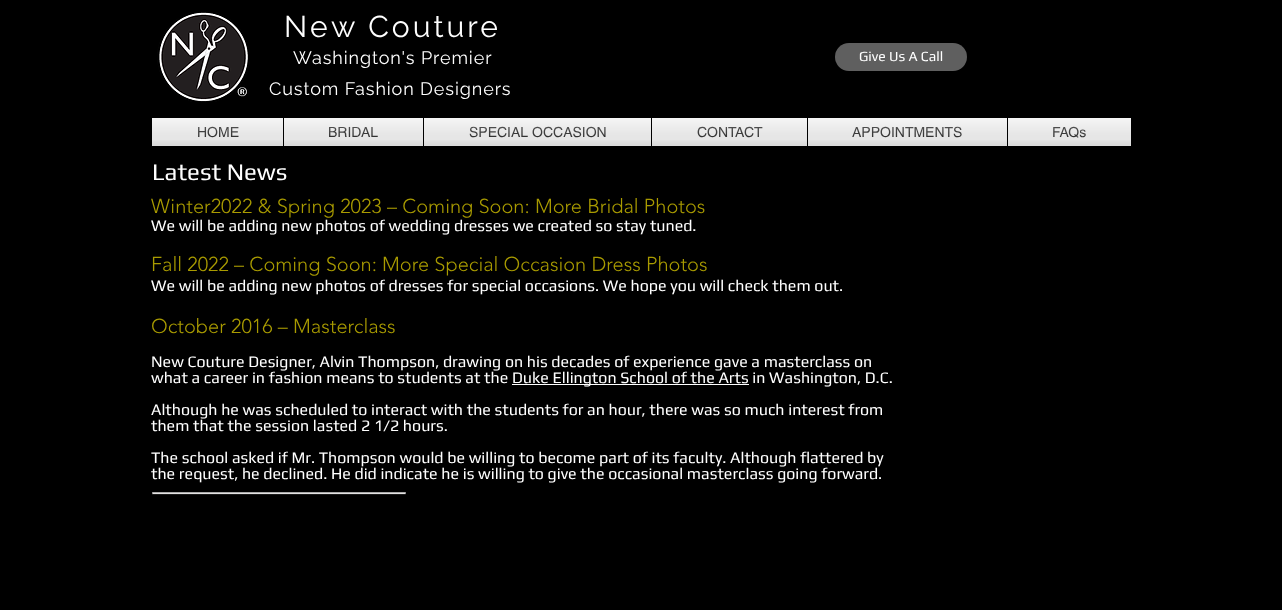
<?xml version="1.0" encoding="UTF-8"?>
<svg xmlns="http://www.w3.org/2000/svg" width="1282" height="610">
    <rect width="100%" height="100%" fill="#000000"/>
    <image x="157" y="12" width="93" height="90" href="img_01.png"/>
    <text x="284" y="37" font-family="Raleway" font-size="30" letter-spacing="3" fill="#FFFFFF">Ne</text>
    <text x="331" y="37" font-family="Raleway" font-size="30" letter-spacing="3" fill="#FFFFFF">w Couture</text>
    <text x="293" y="64" font-family="Raleway" font-size="18" letter-spacing="0.9" fill="#FFFFFF">W</text>
    <text x="312" y="64" font-family="Raleway" font-size="18" letter-spacing="0.9" fill="#FFFFFF">ashington's Premier</text>
    <text x="269" y="95" font-family="Raleway" font-size="18" letter-spacing="0.9" fill="#FFFFFF">Custom Fashion Designers</text>
    <rect x="835" y="43" width="132" height="28" rx="14" fill="#5F5F5F"/>
    <text x="859" y="61" font-family="Play" font-size="14" fill="#FFFFFF">Give Us A Call</text>
    <rect x="152" y="118" width="131" height="28" fill="#FFFFFF"/>
    <text x="197" y="137" font-family="helvetica" font-size="14" fill="#000000">HOME</text>
    <image x="197" y="126" width="41" height="12" href="img_02.png"/>
    <image x="152" y="118" width="131" height="28" href="img_03.png"/>
    <rect x="284" y="118" width="139" height="28" fill="#FFFFFF"/>
    <text x="328" y="137" font-family="helvetica" font-size="14" fill="#000000">BRIDAL</text>
    <image x="329" y="126" width="50" height="11" href="img_04.png"/>
    <image x="284" y="118" width="139" height="28" href="img_05.png"/>
    <rect x="424" y="118" width="227" height="28" fill="#FFFFFF"/>
    <text x="469" y="137" font-family="helvetica" font-size="14" fill="#000000">SPECIAL OCCASION</text>
    <image x="469" y="126" width="137" height="12" href="img_06.png"/>
    <image x="424" y="118" width="227" height="28" href="img_07.png"/>
    <rect x="652" y="118" width="155" height="28" fill="#FFFFFF"/>
    <text x="697" y="137" font-family="helvetica" font-size="14" fill="#000000">CONTACT</text>
    <image x="697" y="126" width="66" height="12" href="img_08.png"/>
    <image x="652" y="118" width="155" height="28" href="img_09.png"/>
    <rect x="808" y="118" width="199" height="28" fill="#FFFFFF"/>
    <text x="852" y="137" font-family="helvetica" font-size="14" fill="#000000">APPOINTMENTS</text>
    <image x="852" y="126" width="110" height="12" href="img_10.png"/>
    <image x="808" y="118" width="199" height="28" href="img_11.png"/>
    <rect x="1008" y="118" width="123" height="28" fill="#FFFFFF"/>
    <text x="1052" y="137" font-family="helvetica" font-size="14" fill="#000000">FAQs</text>
    <image x="1053" y="126" width="33" height="12" href="img_12.png"/>
    <image x="1008" y="118" width="123" height="28" href="img_13.png"/>
    <text x="152" y="180" font-family="Play" font-size="24" fill="#FFFFFF">Latest News</text>
    <text x="151" y="213" font-family="'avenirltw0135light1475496'" font-size="20" font-weight="300" fill="#A99B00">Winter2022 &amp; Spring 2023 – Coming Soon: More Bridal Photos</text>
    <text x="151" y="231" font-family="Play" font-size="16" fill="#FFFFFF">We will be adding new photos of wedding dresses we created so stay tuned.</text>
    <text x="151" y="271" font-family="'avenirltw0135light1475496'" font-size="20" font-weight="300" fill="#A99B00">Fall 2022 – Coming Soon: More Special Occasion Dress Photos</text>
    <text x="151" y="291" font-family="Play" font-size="16" fill="#FFFFFF">We will be adding new photos of dresses for special occasions. We hope you will check them out.</text>
    <text x="151" y="333" font-family="'avenirltw0135light1475496'" font-size="20" font-weight="300" fill="#A99B00">October 2016 – Masterclass</text>
    <text font-family="Play" font-size="16" fill="#FFFFFF">
        <tspan x="151" y="367">New Couture Designer, Alvin Thompson, drawing on his decades of experience gave a masterclass on</tspan>
        <tspan x="151" y="383">what a career in fashion means to students at the</tspan>
    </text>
    <rect x="512" y="384" width="237" height="1" fill="#FFFFFF"/>
    <text x="512" y="383" font-family="Play" font-size="16" fill="#FFFFFF">Duke Ellington School of the Arts in Washington, D.C.</text>
    <text font-family="Play" font-size="16" fill="#FFFFFF">
        <tspan x="151" y="415">Although he was scheduled to interact with the students for an hour, there was so much interest from</tspan>
        <tspan x="151" y="431">them that the session lasted 2 1/2 hours.</tspan>
    </text>
    <text font-family="Play" font-size="16" fill="#FFFFFF">
        <tspan x="151" y="463">The school asked if Mr. Thompson would be willing to become part of its faculty. Although flattered by</tspan>
        <tspan x="151" y="479">the request, he declined. He did indicate he is willing to give the occasional masterclass going forward.</tspan>
    </text>
    <path d="M 152 494 V 495 H 405 C 406 495 406 494 406 494 H 405 H 153 Z" fill="#1A1A1A"/>
    <rect x="152" y="492" width="254" height="2" rx="1" fill="#E3E2E2"/>
    <path d="M 153 493 H 405 L 406 494 C 406 493 406 492 405 492 H 153 C 152 492 152 493 152 494 Z" fill="#000000" fill-opacity="0.25"/>
</svg>
